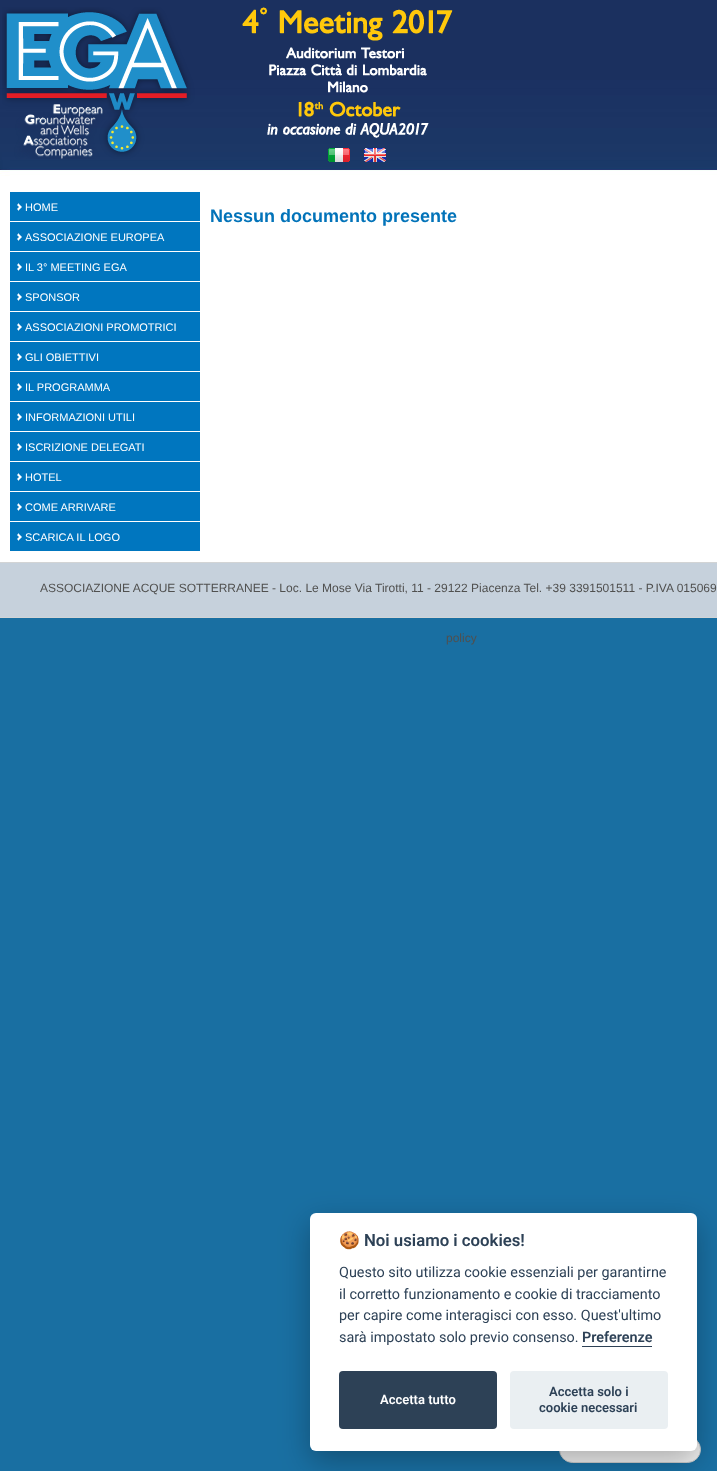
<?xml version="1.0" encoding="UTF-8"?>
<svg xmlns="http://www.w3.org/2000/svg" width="717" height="1471">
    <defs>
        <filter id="blur1" x="-50%" y="-200%" width="200%" height="500%"><feGaussianBlur stdDeviation="15"/></filter>
    </defs>
    <rect width="100%" height="100%" fill="#196FA2"/>
    <image x="0" y="0" width="717" height="192" href="img_01.png"/>
    <image x="2" y="7" width="451" height="152" href="img_02.png"/>
    <image x="328" y="148" width="22" height="14" href="img_03.png"/>
    <image x="364" y="148" width="22" height="14" href="img_04.png"/>
    <rect x="0" y="192" width="717" height="370" fill="#FFFFFF"/>
    <image x="10" y="192" width="190" height="29" href="img_05.png"/>
    <text x="25" y="211" font-family="Liberation Sans" font-size="11" fill="#FFFFFF">HOME</text>
    <image x="10" y="222" width="190" height="29" href="img_05.png"/>
    <text x="25" y="241" font-family="Liberation Sans" font-size="11" fill="#FFFFFF">ASSOCIAZIONE EUROPEA</text>
    <image x="10" y="252" width="190" height="29" href="img_05.png"/>
    <text x="25" y="271" font-family="Liberation Sans" font-size="11" fill="#FFFFFF">IL 3° MEETING EGA</text>
    <image x="10" y="282" width="190" height="29" href="img_05.png"/>
    <text x="25" y="301" font-family="Liberation Sans" font-size="11" fill="#FFFFFF">SPONSOR</text>
    <image x="10" y="312" width="190" height="29" href="img_05.png"/>
    <text x="25" y="331" font-family="Liberation Sans" font-size="11" fill="#FFFFFF">ASSOCIAZIONI PROMOTRICI</text>
    <image x="10" y="342" width="190" height="29" href="img_05.png"/>
    <text x="25" y="361" font-family="Liberation Sans" font-size="11" fill="#FFFFFF">GLI OBIETTIVI</text>
    <image x="10" y="372" width="190" height="29" href="img_05.png"/>
    <text x="25" y="391" font-family="Liberation Sans" font-size="11" fill="#FFFFFF">IL PROGRAMMA</text>
    <image x="10" y="402" width="190" height="29" href="img_05.png"/>
    <text x="25" y="421" font-family="Liberation Sans" font-size="11" fill="#FFFFFF">INFORMAZIONI UTILI</text>
    <image x="10" y="432" width="190" height="29" href="img_05.png"/>
    <text x="25" y="451" font-family="Liberation Sans" font-size="11" fill="#FFFFFF">ISCRIZIONE DELEGATI</text>
    <image x="10" y="462" width="190" height="29" href="img_05.png"/>
    <text x="25" y="481" font-family="Liberation Sans" font-size="11" fill="#FFFFFF">HOTEL</text>
    <image x="10" y="492" width="190" height="29" href="img_05.png"/>
    <text x="25" y="511" font-family="Liberation Sans" font-size="11" fill="#FFFFFF">COME ARRIVARE</text>
    <image x="10" y="522" width="190" height="29" href="img_05.png"/>
    <text x="25" y="541" font-family="Liberation Sans" font-size="11" fill="#FFFFFF">SCARICA IL LOGO</text>
    <text x="210" y="222" font-family="Liberation Sans" font-size="18" font-weight="700" fill="#0273B9">Nessun documento presente</text>
    <rect x="0" y="563" width="717" height="54" fill="#C6D1DC"/>
    <rect x="0" y="562" width="717" height="1" fill="#D2D4D5"/>
    <rect x="0" y="617" width="717" height="1" fill="#D2D4D5"/>
    <text x="40" y="592" font-family="Liberation Sans" font-size="12" fill="#50504F">ASSOCIAZIONE ACQUE SOTTERRANEE - Loc. Le Mose Via Tirotti, 11 - 29122 Piacenza Tel. +39 3391501511 - P.IVA 015069</text>
    <text x="446" y="642" font-family="Liberation Sans" font-size="12" fill="#50504F">policy</text>
    <rect x="559.5" y="1436.5" width="141" height="26" rx="13" fill="#EFEFEF" stroke="#CCCCCC"/>
    <rect x="310" y="1223" width="387" height="238" rx="6" fill="#020203" fill-opacity="0.28" filter="url(#blur1)"/>
    <rect x="310" y="1213" width="387" height="238" rx="6" fill="#FFFFFF"/>
    <text x="339" y="1246" font-family="Noto Color Emoji" font-size="16.75" font-weight="700" fill="#2D4156">🍪</text>
    <text x="364" y="1246" font-family="Roboto" font-size="16.75" font-weight="600" fill="#2D4156">Noi usiamo i cookies!</text>
    <text font-family="Roboto" font-size="14.4" fill="#2D4156">
        <tspan x="339" y="1277">Questo sito utilizza cookie essenziali per garantirne</tspan>
        <tspan x="339" y="1299">il corretto funzionamento e cookie di tracciamento</tspan>
        <tspan x="339" y="1320">per capire come interagisci con esso. Quest'ultimo</tspan>
        <tspan x="339" y="1342">sarà impostato solo previo consenso.</tspan>
    </text>
    <text x="582" y="1342" font-family="Roboto" font-size="14.4" font-weight="600" fill="#2D4156">Preferenze</text>
    <rect x="582" y="1346" width="70" height="1" fill="#2D4156"/>
    <rect x="339" y="1371" width="158" height="58" rx="4" fill="#2D4156"/>
    <text x="380" y="1404" font-family="Roboto" font-size="13" font-weight="600" fill="#FFFFFF">Accetta tutto</text>
    <rect x="510" y="1371" width="158" height="58" rx="4" fill="#EAEFF2"/>
    <text x="549" y="1396" font-family="Roboto" font-size="13" font-weight="600" fill="#2D4156">Accetta solo i</text>
    <text x="539" y="1412" font-family="Roboto" font-size="13" font-weight="600" fill="#2D4156">cookie necessari</text>
</svg>
